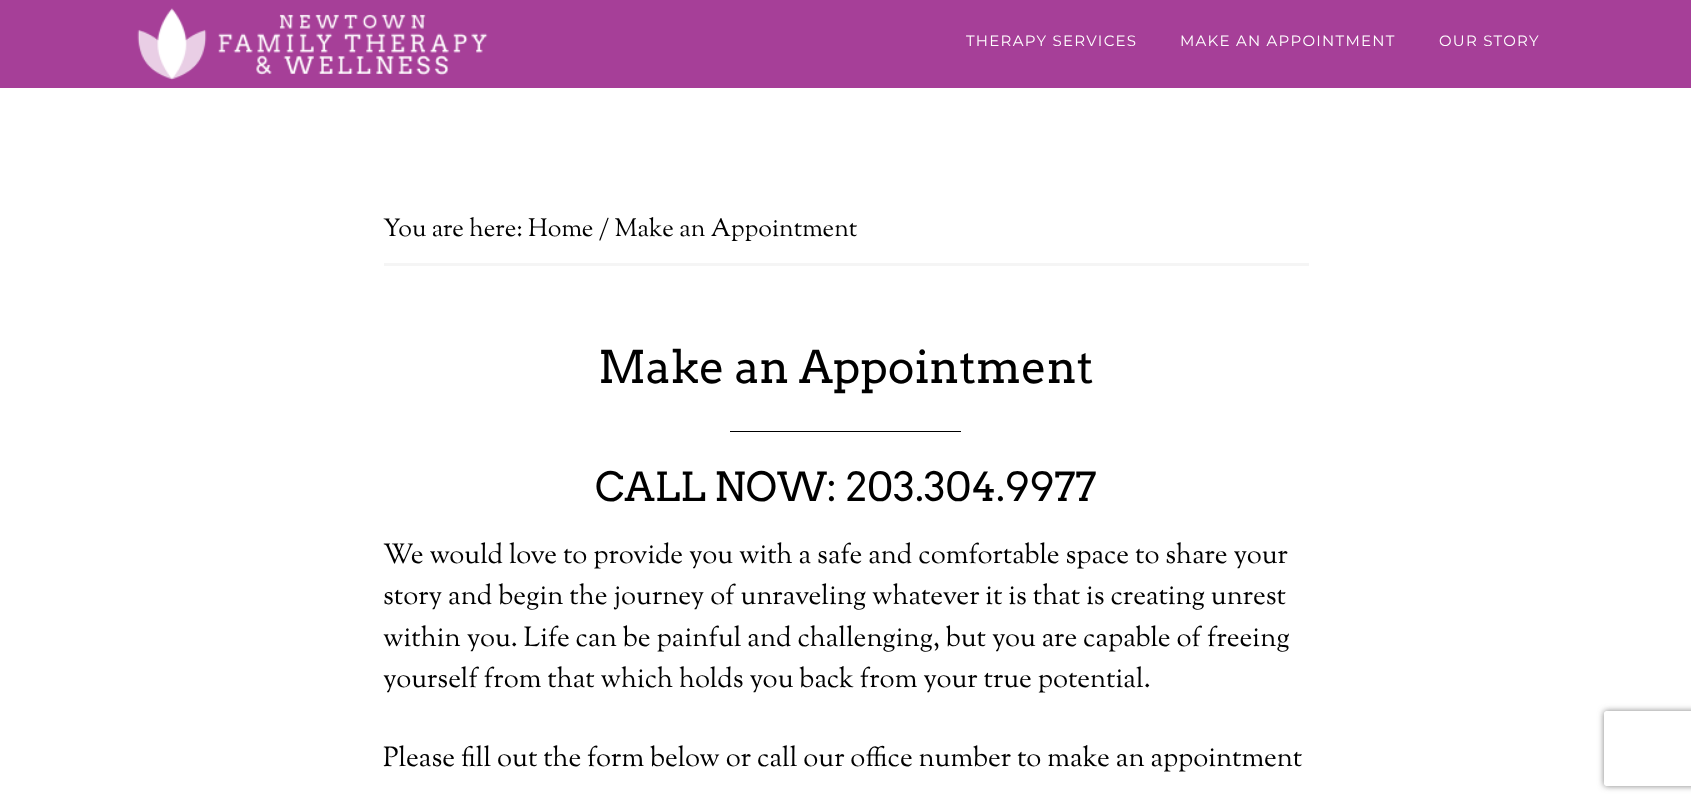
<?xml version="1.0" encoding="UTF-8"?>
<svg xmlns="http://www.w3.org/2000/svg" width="1691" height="803">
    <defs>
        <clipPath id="clip1"><path d="M 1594 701 H 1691 V 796 H 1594 Z M 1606.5 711 H 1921.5 C 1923 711 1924 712 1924 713.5 V 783.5 C 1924 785 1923 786 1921.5 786 H 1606.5 C 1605 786 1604 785 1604 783.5 V 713.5 C 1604 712 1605 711 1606.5 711 Z" clip-rule="evenodd"/></clipPath>
        <filter id="blur1" x="-50%" y="-200%" width="200%" height="500%"><feGaussianBlur stdDeviation="3"/></filter>
    </defs>
    <rect width="100%" height="100%" fill="#FFFFFF"/>
    <rect x="0" y="0" width="1691" height="88" fill="#A63F98"/>
    <image x="137" y="8" width="351" height="72" href="img_01.png"/>
    <text x="966" y="46" font-family="Montserrat" font-size="15" font-weight="100" letter-spacing="1.25" fill="#FFFFFF">THERAPY SERVICES</text>
    <text x="1180" y="46" font-family="Montserrat" font-size="15" font-weight="100" letter-spacing="1.25" fill="#FFFFFF">MAKE AN APPOINTMENT</text>
    <text x="1439" y="46" font-family="Montserrat" font-size="15" font-weight="100" letter-spacing="1.25" fill="#FFFFFF">OUR STORY</text>
    <rect x="384" y="263" width="925" height="3" fill="#F5F5F5"/>
    <text x="383" y="236" font-family="Sorts Mill Goudy" font-size="25" fill="#000000">You are here: Home / Make an Appointment</text>
    <text x="598" y="383" font-family="Arvo" font-size="45" fill="#000000">Make an Appointment</text>
    <rect x="730" y="431" width="231" height="1" fill="#000000"/>
    <text x="595" y="501" font-family="Arvo" font-size="40" fill="#000000">CALL NOW: 203.304.9977</text>
    <text font-family="Sorts Mill Goudy" font-size="27.5" fill="#000000">
        <tspan x="383" y="563">We would love to provide you with a safe and comfortable space to share your</tspan>
        <tspan x="383" y="604">story and begin the journey of unraveling whatever it is that is creating unrest</tspan>
        <tspan x="383" y="646">within you. Life can be painful and challenging, but you are capable of freeing</tspan>
        <tspan x="383" y="687">yourself from that which holds you back from your true potential.</tspan>
    </text>
    <text x="383" y="766" font-family="Sorts Mill Goudy" font-size="27.5" fill="#000000">Please fill out the form below or call our office number to make an appointment</text>
    <g clip-path="url(#clip1)">
        <rect x="1604" y="711" width="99" height="75" rx="2.5" fill="#808080" filter="url(#blur1)"/>
    </g>
</svg>
